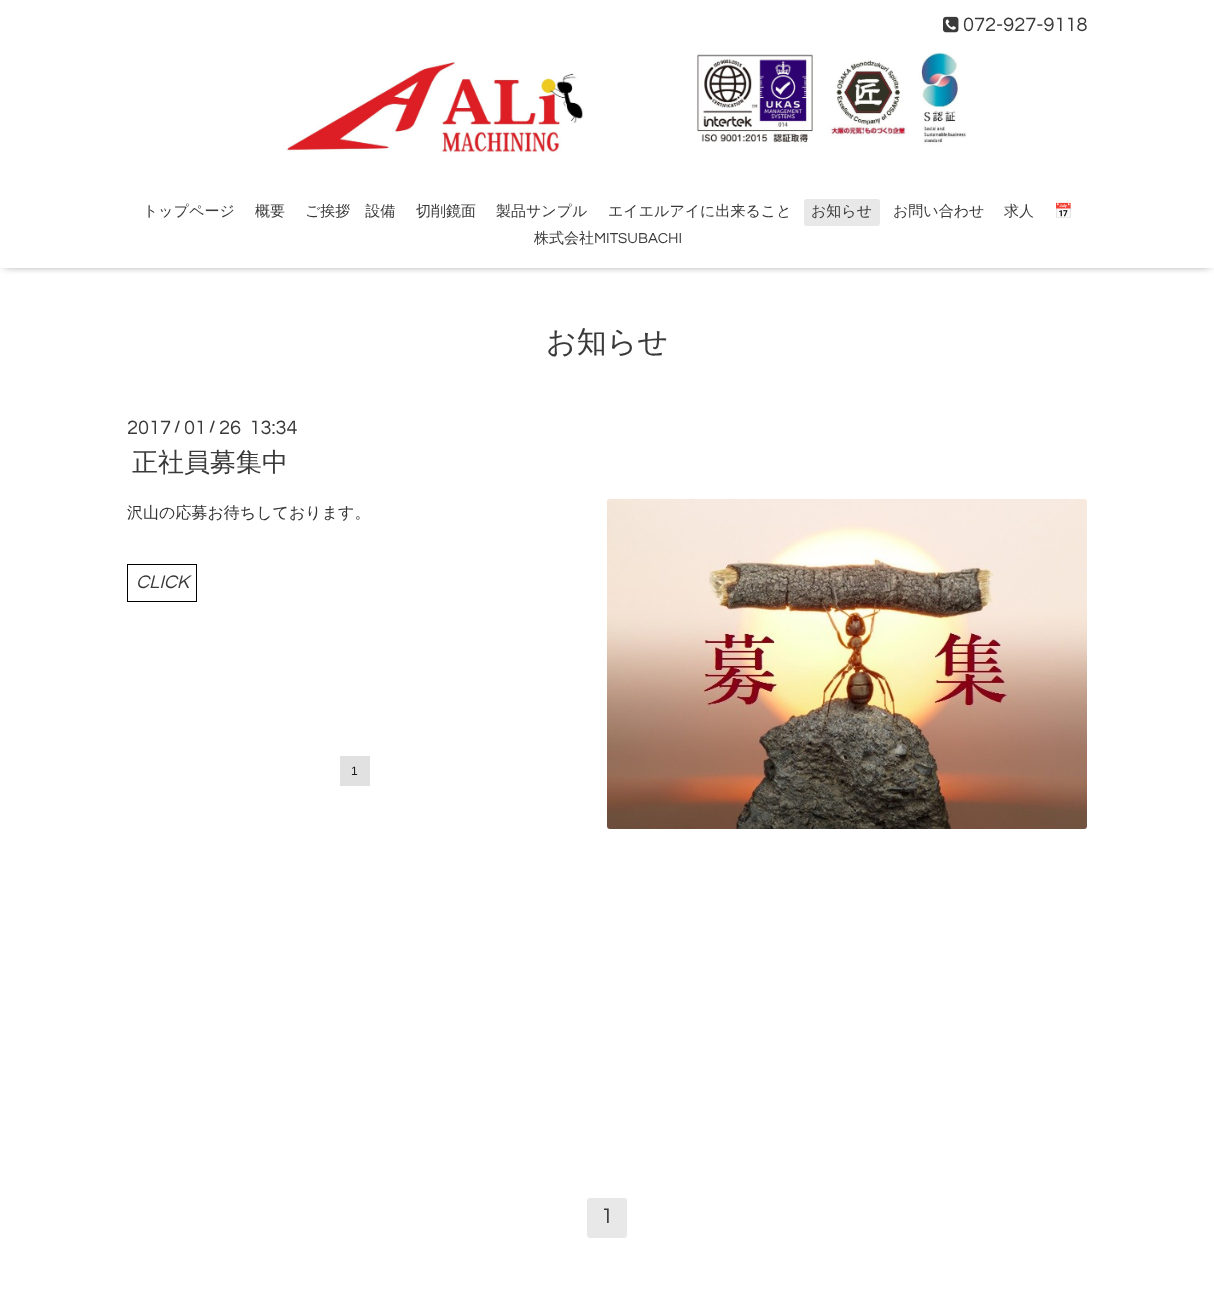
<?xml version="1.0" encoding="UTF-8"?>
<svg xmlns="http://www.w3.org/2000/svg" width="1214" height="1307">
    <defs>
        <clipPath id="clip1"><rect x="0" y="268" width="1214" height="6"/></clipPath>
        <filter id="blur1" x="-50%" y="-200%" width="200%" height="500%"><feGaussianBlur stdDeviation="5"/></filter>
    </defs>
    <rect width="100%" height="100%" fill="#FFFFFF"/>
    <g clip-path="url(#clip1)">
        <rect x="4" y="5" width="1206" height="260" fill="#000000" fill-opacity="0.6" filter="url(#blur1)"/>
    </g>
    <image x="943" y="16" width="16" height="17" href="img_01.png"/>
    <text x="963" y="31" font-family="Questrial" font-size="20" fill="#3A3A3A">072-927-9118</text>
    <image x="285" y="52" width="682" height="101" href="img_02.png"/>
    <text x="143" y="216" font-family="WenQuanYi Zen Hei" font-size="15" font-weight="500" fill="#3A3A3A">トップページ</text>
    <text x="255" y="216" font-family="WenQuanYi Zen Hei" font-size="15" font-weight="500" fill="#3A3A3A">概要</text>
    <text x="305" y="216" font-family="WenQuanYi Zen Hei" font-size="15" font-weight="500" fill="#3A3A3A">ご挨拶　設備</text>
    <text x="416" y="216" font-family="WenQuanYi Zen Hei" font-size="15" font-weight="500" fill="#3A3A3A">切削鏡面</text>
    <text x="496" y="216" font-family="WenQuanYi Zen Hei" font-size="15" font-weight="500" fill="#3A3A3A">製品サンプル</text>
    <text x="608" y="216" font-family="WenQuanYi Zen Hei" font-size="15" font-weight="500" fill="#3A3A3A">エイエルアイに出来ること</text>
    <rect x="804" y="199" width="76" height="27" rx="3" fill="#E8E8E8"/>
    <text x="811" y="216" font-family="WenQuanYi Zen Hei" font-size="15" font-weight="500" fill="#3A3A3A">お知らせ</text>
    <text x="893" y="216" font-family="WenQuanYi Zen Hei" font-size="15" font-weight="500" fill="#3A3A3A">お問い合わせ</text>
    <text x="1004" y="216" font-family="WenQuanYi Zen Hei" font-size="15" font-weight="500" fill="#3A3A3A">求人</text>
    <text x="1054" y="216" font-family="Noto Color Emoji" font-size="15" fill="#3A3A3A">📅</text>
    <text x="534" y="243" font-family="WenQuanYi Zen Hei" font-size="15" font-weight="500" fill="#3A3A3A">株式会社</text>
    <text x="594" y="243" font-family="Questrial" font-size="15" fill="#3A3A3A">MITSUBACHI</text>
    <text x="546" y="352" font-family="WenQuanYi Zen Hei" font-size="30" font-weight="500" fill="#3A3A3A">お知らせ</text>
    <text x="127" y="434" font-family="Questrial" font-size="20" fill="#3A3A3A">2017</text>
    <text x="174" y="432" font-family="Questrial" font-size="16" font-weight="700" fill="#3A3A3A">/</text>
    <text x="184" y="434" font-family="Questrial" font-size="20" fill="#3A3A3A">01</text>
    <text x="209" y="432" font-family="Questrial" font-size="16" font-weight="700" fill="#3A3A3A">/</text>
    <text x="219" y="434" font-family="Questrial" font-size="20" fill="#3A3A3A" xml:space="preserve">26  13:34</text>
    <text x="132" y="471" font-family="WenQuanYi Zen Hei" font-size="26" font-weight="500" fill="#3A3A3A">正社員募集中</text>
    <text x="127" y="518" font-family="WenQuanYi Zen Hei" font-size="16" font-weight="500" fill="#333333">沢山の応募お待ちしております。</text>
    <rect x="127" y="564" width="70" height="1" fill="#000000"/>
    <rect x="196" y="564" width="1" height="38" fill="#000000"/>
    <rect x="127" y="601" width="70" height="1" fill="#000000"/>
    <rect x="127" y="564" width="1" height="38" fill="#000000"/>
    <text x="136" y="588" font-family="Questrial" font-size="19" font-style="italic" fill="#3A3A3A">CLICK</text>
    <rect x="340" y="756" width="30" height="30" fill="#E1E1E1"/>
    <text x="351" y="775" font-family="Liberation Sans" font-size="12" letter-spacing="1" fill="#1B1B1B">1</text>
    <image x="607" y="499" width="480" height="330" href="img_03.png"/>
    <rect x="587" y="1198" width="40" height="40" rx="3" fill="#E8E8E8"/>
    <text x="601" y="1223" font-family="Questrial" font-size="22" fill="#3A3A3A">1</text>
</svg>
